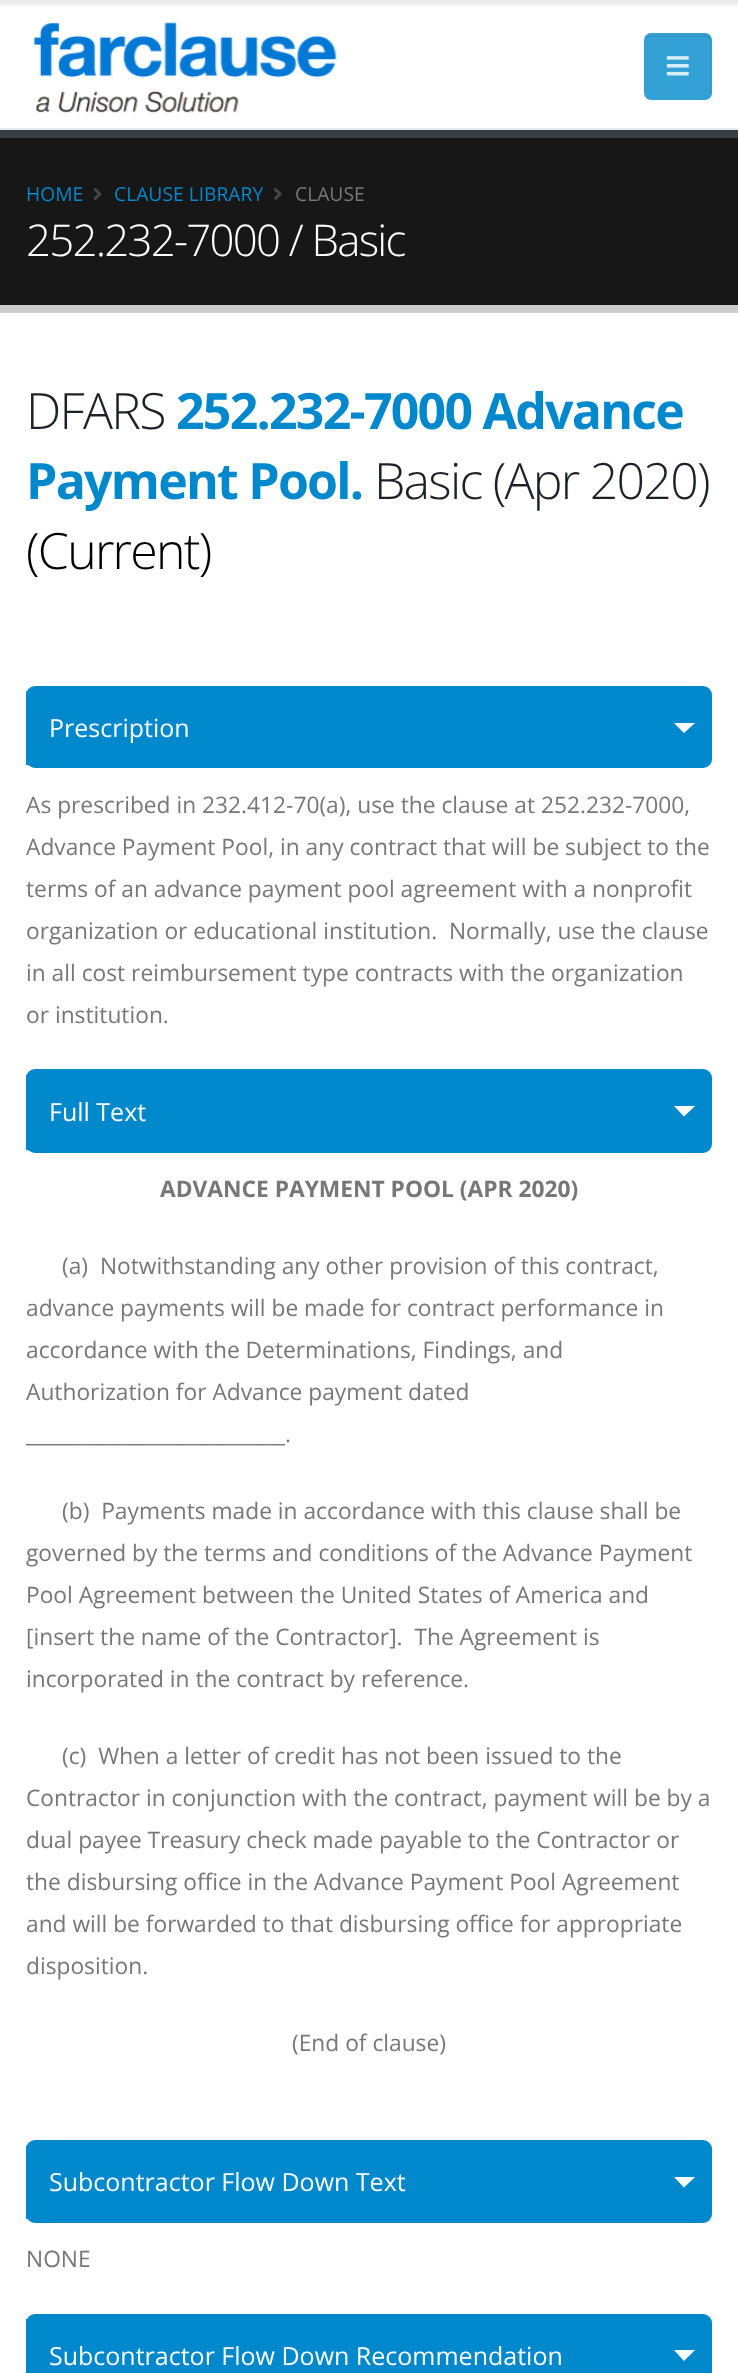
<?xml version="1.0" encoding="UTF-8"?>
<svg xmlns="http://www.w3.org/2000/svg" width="738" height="2373">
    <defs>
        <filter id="blur1" x="-50%" y="-200%" width="200%" height="500%"><feGaussianBlur stdDeviation="2.5"/></filter>
    </defs>
    <rect width="100%" height="100%" fill="#FFFFFF"/>
    <rect x="0" y="138" width="738" height="167" fill="#171717"/>
    <rect x="0" y="130" width="738" height="8" fill="#384045"/>
    <rect x="0" y="0" width="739" height="130" fill="#000000" fill-opacity="0.1" filter="url(#blur1)"/>
    <rect x="0" y="5" width="738" height="123" fill="#FFFFFF"/>
    <rect x="0" y="0" width="738" height="5" fill="#EDEDED"/>
    <rect x="0" y="128" width="738" height="2" fill="#E9E9E9"/>
    <image x="34" y="22" width="303" height="91" href="img_01.png"/>
    <rect x="644" y="33" width="68" height="67" rx="7" fill="#33A0D6"/>
    <path d="M 651 37 H 705 C 708 37 710 39 710 42 V 94 V 97 C 710 96 711 94 711 93 V 40 C 711 37 709 35 706 35 H 651 C 648 35 646 37 646 40 V 42 C 646 39 648 37 651 37 Z" fill="#3395C6"/>
    <image x="666" y="56" width="23" height="20" href="img_02.png"/>
    <rect x="0" y="305" width="738" height="8" fill="#CCCCCC"/>
    <text x="26" y="201" font-family="Open Sans" font-size="19.25" fill="#0088CC">HOME</text>
    <image x="93" y="188" width="9" height="12" href="img_03.png"/>
    <text x="114" y="201" font-family="Open Sans" font-size="19.25" fill="#0088CC">CLAUSE LIBRARY</text>
    <image x="274" y="188" width="8" height="12" href="img_04.png"/>
    <text x="295" y="201" font-family="Open Sans" font-size="19.25" fill="#777777">CLAUSE</text>
    <text x="26" y="256" font-family="Open Sans" font-size="43.75" font-weight="300" letter-spacing="-1.75" fill="#FFFFFF">252.232-7000 / Basic</text>
    <text x="26" y="429" font-family="Open Sans" font-size="50" font-weight="300" letter-spacing="-1.75" fill="#1D2127">DFARS</text>
    <text x="176" y="429" font-family="Open Sans" font-size="50" font-weight="700" letter-spacing="-1.75" fill="#0088CC">252.232-7000 Advance</text>
    <text x="26" y="499" font-family="Open Sans" font-size="50" font-weight="700" letter-spacing="-1.75" fill="#0088CC">Payment Pool.</text>
    <text x="374" y="499" font-family="Open Sans" font-size="50" font-weight="300" letter-spacing="-1.75" fill="#1D2127">Basic (Apr 2020)</text>
    <text x="26" y="569" font-family="Open Sans" font-size="50" font-weight="300" letter-spacing="-1.75" fill="#000000">(Current)</text>
    <rect x="26" y="686" width="686" height="82" rx="9" fill="#0088CC"/>
    <rect x="26" y="691" width="3" height="74" fill="#0088CC"/>
    <text x="49" y="737" font-family="Open Sans" font-size="25" fill="#FFFFFF">Prescription</text>
    <path d="M 674 723 H 695 L 684 733 Z" fill="#FFFFFF"/>
    <text font-family="Open Sans" font-size="22.75" fill="#777777" xml:space="preserve"><tspan x="26" y="813">As prescribed in 232.412-70(a), use the clause at 252.232-7000,</tspan><tspan x="26" y="855">Advance Payment Pool, in any contract that will be subject to the</tspan><tspan x="26" y="897">terms of an advance payment pool agreement with a nonprofit</tspan><tspan x="26" y="939">organization or educational institution.  Normally, use the clause</tspan><tspan x="26" y="981">in all cost reimbursement type contracts with the organization</tspan><tspan x="26" y="1023">or institution.</tspan></text>
    <rect x="26" y="1069" width="686" height="84" rx="9" fill="#0088CC"/>
    <rect x="26" y="1075" width="3" height="75" fill="#0088CC"/>
    <text x="49" y="1121" font-family="Open Sans" font-size="25" fill="#FFFFFF">Full Text</text>
    <path d="M 674 1106 H 695 L 684 1116.5 Z" fill="#FFFFFF"/>
    <text x="160" y="1197" font-family="Open Sans" font-size="22.75" font-weight="700" fill="#777777">ADVANCE PAYMENT POOL (APR 2020)</text>
    <text x="62" y="1274" font-family="Open Sans" font-size="22.75" fill="#777777" xml:space="preserve">(a)  Notwithstanding any other provision of this contract,</text>
    <text font-family="Open Sans" font-size="22.75" fill="#777777">
        <tspan x="26" y="1316">advance payments will be made for contract performance in</tspan>
        <tspan x="26" y="1358">accordance with the Determinations, Findings, and</tspan>
        <tspan x="26" y="1400">Authorization for Advance payment dated</tspan>
        <tspan x="26" y="1442">__________________________.</tspan>
    </text>
    <text x="62" y="1519" font-family="Open Sans" font-size="22.75" fill="#777777" xml:space="preserve">(b)  Payments made in accordance with this clause shall be</text>
    <text font-family="Open Sans" font-size="22.75" fill="#777777" xml:space="preserve"><tspan x="26" y="1561">governed by the terms and conditions of the Advance Payment</tspan><tspan x="26" y="1603">Pool Agreement between the United States of America and</tspan><tspan x="26" y="1645">[insert the name of the Contractor].  The Agreement is</tspan><tspan x="26" y="1687">incorporated in the contract by reference.</tspan></text>
    <text x="62" y="1764" font-family="Open Sans" font-size="22.75" fill="#777777" xml:space="preserve">(c)  When a letter of credit has not been issued to the</text>
    <text font-family="Open Sans" font-size="22.75" fill="#777777">
        <tspan x="26" y="1806">Contractor in conjunction with the contract, payment will be by a</tspan>
        <tspan x="26" y="1848">dual payee Treasury check made payable to the Contractor or</tspan>
        <tspan x="26" y="1890">the disbursing office in the Advance Payment Pool Agreement</tspan>
        <tspan x="26" y="1932">and will be forwarded to that disbursing office for appropriate</tspan>
        <tspan x="26" y="1974">disposition.</tspan>
    </text>
    <text x="292" y="2051" font-family="Open Sans" font-size="22.75" fill="#777777">(End of clause)</text>
    <rect x="26" y="2140" width="686" height="83" rx="9" fill="#0088CC"/>
    <rect x="26" y="2146" width="2" height="73" fill="#0088CC"/>
    <text x="49" y="2191" font-family="Open Sans" font-size="25" fill="#FFFFFF">Subcontractor Flow Down Text</text>
    <path d="M 674 2177 H 695 L 684 2187.5 Z" fill="#FFFFFF"/>
    <text x="26" y="2267" font-family="Open Sans" font-size="22.75" fill="#777777">NONE</text>
    <rect x="26" y="2314" width="686" height="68" rx="9" fill="#0088CC"/>
    <rect x="26" y="2319" width="1" height="4" fill="#0088CC"/>
    <text x="49" y="2365" font-family="Open Sans" font-size="25" fill="#FFFFFF">Subcontractor Flow Down Recommendation</text>
    <path d="M 674 2350 H 695 L 684 2361 Z" fill="#FFFFFF"/>
</svg>
